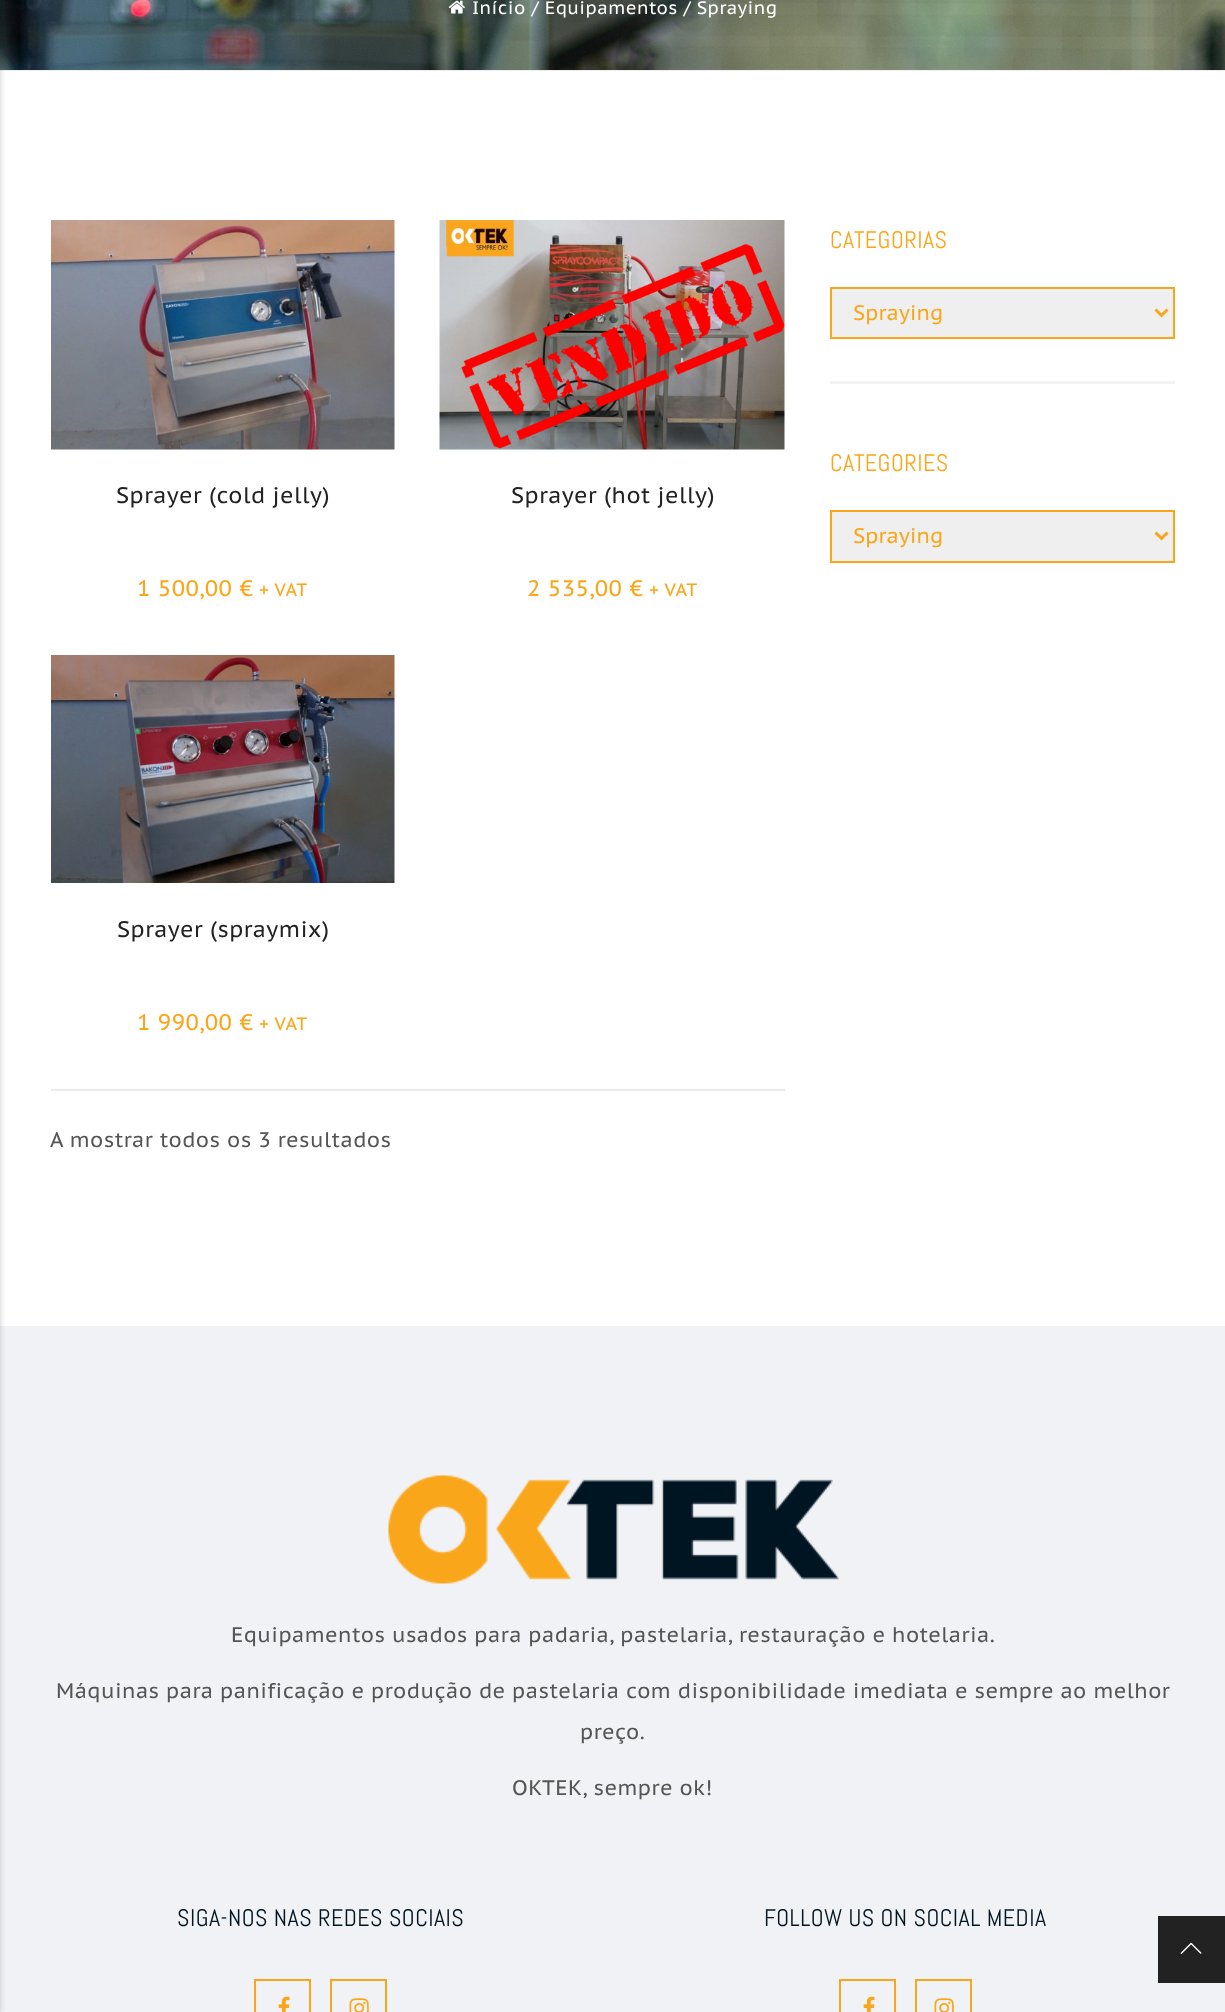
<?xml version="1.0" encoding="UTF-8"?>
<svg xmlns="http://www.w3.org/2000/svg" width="1225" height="2012">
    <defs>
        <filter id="blur1" x="-50%" y="-200%" width="200%" height="500%"><feGaussianBlur stdDeviation="3"/></filter>
    </defs>
    <rect width="100%" height="100%" fill="#FFFFFF"/>
    <rect x="0" y="70" width="1225" height="1" fill="#EEEEEE"/>
    <image x="0" y="0" width="1225" height="70" href="img_01.png"/>
    <rect x="0" y="1326" width="1225" height="686" fill="#F1F2F5"/>
    <rect x="-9" y="0" width="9" height="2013" fill="#000000" fill-opacity="0.2" filter="url(#blur1)"/>
    <image x="448" y="0" width="17" height="14" href="img_02.png"/>
    <text x="472" y="14" font-family="PT Sans Caption" font-size="18" letter-spacing="0.45" fill="#FFFFFF">Início / Equipamentos / Spraying</text>
    <rect x="830" y="381" width="345" height="3" fill="#F3F3F3"/>
    <text x="830" y="248" font-family="Abel" font-size="24" letter-spacing="0.45" fill="#FAA61A">CATEGORIAS</text>
    <rect x="831" y="288" width="343" height="50" fill="#EFEFEF" stroke="#FAA61A" stroke-width="2"/>
    <path d="M 1155.5 309.5 L 1161.5 315.5 L 1167.5 309.5" fill="none" stroke="#FAA61A" stroke-width="3"/>
    <text x="853" y="320" font-family="PT Sans Caption" font-size="21" fill="#FAA61A">Spraying</text>
    <text x="830" y="471" font-family="Abel" font-size="24" letter-spacing="0.45" fill="#FAA61A">CATEGORIES</text>
    <rect x="831" y="511" width="343" height="51" fill="#EFEFEF" stroke="#FAA61A" stroke-width="2"/>
    <path d="M 1155.5 532.5 L 1161.5 538.5 L 1167.5 532.5" fill="none" stroke="#FAA61A" stroke-width="3"/>
    <text x="853" y="543" font-family="PT Sans Caption" font-size="21" fill="#FAA61A">Spraying</text>
    <image x="51" y="220" width="344" height="230" href="img_03.png"/>
    <text x="116" y="503" font-family="PT Sans Caption" font-size="22.5" letter-spacing="0.45" fill="#222222">Sprayer (cold jelly)</text>
    <text x="137" y="596" font-family="PT Sans Caption" font-size="22.5" letter-spacing="0.45" fill="#FAA61A">1 500,00 €</text>
    <text x="259" y="596" font-family="PT Sans Caption" font-size="18" letter-spacing="0.45" fill="#FAA61A">+ VAT</text>
    <image x="439" y="220" width="346" height="230" href="img_04.png"/>
    <text x="511" y="503" font-family="PT Sans Caption" font-size="22.5" letter-spacing="0.45" fill="#222222">Sprayer (hot jelly)</text>
    <text x="527" y="596" font-family="PT Sans Caption" font-size="22.5" letter-spacing="0.45" fill="#FAA61A">2 535,00 €</text>
    <text x="649" y="596" font-family="PT Sans Caption" font-size="18" letter-spacing="0.45" fill="#FAA61A">+ VAT</text>
    <image x="51" y="655" width="344" height="228" href="img_05.png"/>
    <text x="117" y="937" font-family="PT Sans Caption" font-size="22.5" letter-spacing="0.45" fill="#222222">Sprayer (spraymix)</text>
    <text x="137" y="1030" font-family="PT Sans Caption" font-size="22.5" letter-spacing="0.45" fill="#FAA61A">1 990,00 €</text>
    <text x="259" y="1030" font-family="PT Sans Caption" font-size="18" letter-spacing="0.45" fill="#FAA61A">+ VAT</text>
    <rect x="51" y="1089" width="734" height="2" fill="#EBEBEB"/>
    <text x="50" y="1147" font-family="PT Sans Caption" font-size="21" letter-spacing="0.45" fill="#555555">A mostrar todos os 3 resultados</text>
    <image x="388" y="1475" width="451" height="109" href="img_06.png"/>
    <text x="231" y="1642" font-family="PT Sans Caption" font-size="21" letter-spacing="0.45" fill="#555555">Equipamentos usados para padaria, pastelaria, restauração e hotelaria.</text>
    <text x="56" y="1698" font-family="PT Sans Caption" font-size="21" letter-spacing="0.45" fill="#555555">Máquinas para panificação e produção de pastelaria com disponibilidade imediata e sempre ao melhor</text>
    <text x="580" y="1739" font-family="PT Sans Caption" font-size="21" letter-spacing="0.45" fill="#555555">preço.</text>
    <text x="512" y="1795" font-family="PT Sans Caption" font-size="21" letter-spacing="0.45" fill="#555555">OKTEK, sempre ok!</text>
    <text x="177" y="1926" font-family="Abel" font-size="24" letter-spacing="0.45" fill="#001522">SIGA-NOS NAS REDES SOCIAIS</text>
    <rect x="255" y="1980" width="55" height="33" fill="none" stroke="#FAA61A" stroke-width="2"/>
    <image x="278" y="1996" width="12" height="16" href="img_07.png"/>
    <rect x="331" y="1980" width="55" height="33" fill="none" stroke="#FAA61A" stroke-width="2"/>
    <image x="349" y="1998" width="20" height="14" href="img_08.png"/>
    <text x="764" y="1926" font-family="Abel" font-size="24" letter-spacing="0.45" fill="#001522">FOLLOW US ON SOCIAL MEDIA</text>
    <rect x="840" y="1980" width="55" height="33" fill="none" stroke="#FAA61A" stroke-width="2"/>
    <image x="863" y="1996" width="12" height="16" href="img_07.png"/>
    <rect x="916" y="1980" width="55" height="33" fill="none" stroke="#FAA61A" stroke-width="2"/>
    <image x="934" y="1998" width="20" height="14" href="img_08.png"/>
    <rect x="1158" y="1916" width="67" height="67" fill="#222222"/>
    <image x="1180" y="1942" width="22" height="12" href="img_09.png"/>
</svg>
